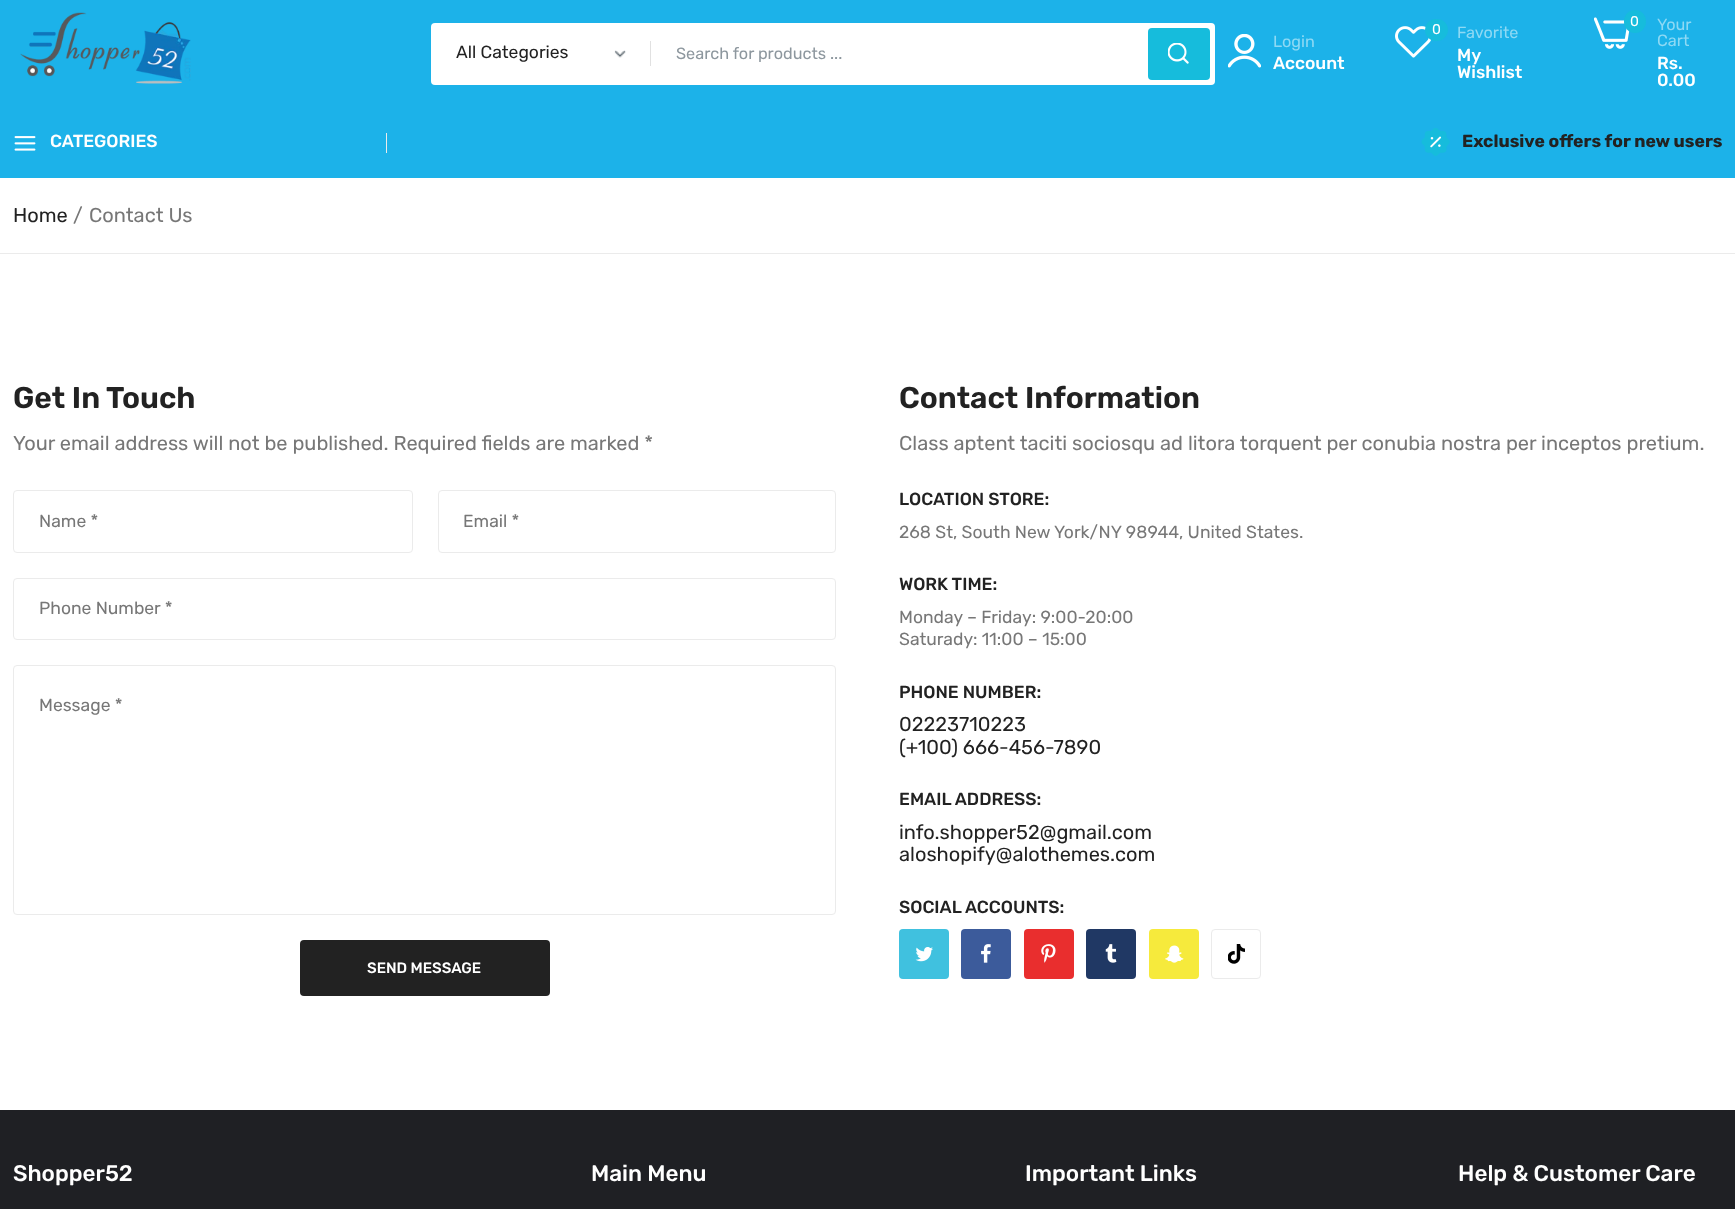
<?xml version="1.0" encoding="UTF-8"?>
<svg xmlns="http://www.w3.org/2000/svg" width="1735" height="1209">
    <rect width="100%" height="100%" fill="#FFFFFF"/>
    <rect x="0" y="0" width="1735" height="178" fill="#1CB2E9"/>
    <image x="20" y="12" width="171" height="72" href="img_01.png"/>
    <rect x="431" y="23" width="784" height="62" rx="4" fill="#FFFFFF"/>
    <image x="614" y="50" width="12" height="8" href="img_02.png"/>
    <text x="456" y="58" font-family="Rubik" font-size="17.5" fill="#222222">All Categories</text>
    <rect x="650" y="41" width="1" height="25" fill="#E1E1E1"/>
    <text x="676" y="59" font-family="Rubik" font-size="16.25" fill="#8D979E">Search for products ...</text>
    <rect x="1148" y="28" width="62" height="52" rx="4" fill="#16BCDC"/>
    <image x="1168" y="43" width="21" height="21" href="img_03.png"/>
    <image x="1228" y="34" width="33" height="34" href="img_04.png"/>
    <text x="1273" y="47" font-family="Rubik" font-size="16.25" fill="#8ED9F4">Login</text>
    <text x="1273" y="69" font-family="Rubik" font-size="17.5" font-weight="500" fill="#FFFFFF">Account</text>
    <image x="1395" y="26" width="36" height="32" href="img_05.png"/>
    <rect x="1425" y="19" width="23" height="22" rx="11" fill="#16BCDC"/>
    <text x="1432" y="34" font-family="Rubik" font-size="14" fill="#FFFFFF">0</text>
    <text x="1457" y="38" font-family="Rubik" font-size="16.25" fill="#8ED9F4">Favorite</text>
    <text font-family="Rubik" font-size="17.5" font-weight="500" fill="#FFFFFF">
        <tspan x="1457" y="61">My</tspan>
        <tspan x="1457" y="78">Wishlist</tspan>
    </text>
    <image x="1594" y="17" width="36" height="32" href="img_06.png"/>
    <rect x="1624" y="10" width="22" height="23" rx="11" fill="#16BCDC"/>
    <text x="1630" y="26" font-family="Rubik" font-size="14" fill="#FFFFFF">0</text>
    <text font-family="Rubik" font-size="16.25" fill="#8ED9F4">
        <tspan x="1657" y="30">Your</tspan>
        <tspan x="1657" y="46">Cart</tspan>
    </text>
    <text font-family="Rubik" font-size="17.5" font-weight="500" fill="#FFFFFF">
        <tspan x="1657" y="69">Rs.</tspan>
        <tspan x="1657" y="86">0.00</tspan>
    </text>
    <image x="14" y="136" width="22" height="15" href="img_07.png"/>
    <text x="50" y="147" font-family="Rubik" font-size="17.5" font-weight="500" fill="#FFFFFF">CATEGORIES</text>
    <rect x="386" y="133" width="1" height="20" fill="#EBEBEB"/>
    <image x="1421" y="128" width="29" height="28" href="img_08.png"/>
    <text x="1462" y="147" font-family="Rubik" font-size="17.5" font-weight="700" fill="#222222">Exclusive offers for new users</text>
    <rect x="0" y="253" width="1735" height="1" fill="#EBEBEB"/>
    <text x="13" y="222" font-family="Rubik" font-size="20" fill="#222222">Home</text>
    <text x="73" y="222" font-family="Rubik" font-size="20" fill="#777777">/</text>
    <text x="89" y="222" font-family="Rubik" font-size="20" fill="#777777">Contact Us</text>
    <text x="13" y="408" font-family="Rubik" font-size="30" font-weight="600" fill="#222222">Get In Touch</text>
    <text x="13" y="450" font-family="Rubik" font-size="20" fill="#777777">Your email address will not be published. Required fields are marked *</text>
    <rect x="13.5" y="490.5" width="399" height="62" rx="3.5" fill="none" stroke="#EBEBEB"/>
    <text x="39" y="527" font-family="Rubik" font-size="17.5" fill="#777777">Name *</text>
    <rect x="438.5" y="490.5" width="397" height="62" rx="3.5" fill="none" stroke="#EBEBEB"/>
    <text x="463" y="527" font-family="Rubik" font-size="17.5" fill="#777777">Email *</text>
    <rect x="13.5" y="578.5" width="822" height="61" rx="3.5" fill="none" stroke="#EBEBEB"/>
    <text x="39" y="614" font-family="Rubik" font-size="17.5" fill="#777777">Phone Number *</text>
    <rect x="13.5" y="665.5" width="822" height="249" rx="3.5" fill="none" stroke="#EBEBEB"/>
    <text x="39" y="711" font-family="Rubik" font-size="17.5" fill="#777777">Message *</text>
    <rect x="300" y="940" width="250" height="56" rx="4" fill="#222222"/>
    <text x="367" y="973" font-family="Rubik" font-size="15" font-weight="500" fill="#FFFFFF">SEND MESSAGE</text>
    <text x="899" y="408" font-family="Rubik" font-size="30" font-weight="600" fill="#222222">Contact Information</text>
    <text x="899" y="450" font-family="Rubik" font-size="20" fill="#777777">Class aptent taciti sociosqu ad litora torquent per conubia nostra per inceptos pretium.</text>
    <text x="899" y="505" font-family="Rubik" font-size="17.5" font-weight="500" fill="#222222">LOCATION STORE:</text>
    <text x="899" y="538" font-family="Rubik" font-size="17.5" fill="#777777">268 St, South New York/NY 98944, United States.</text>
    <text x="899" y="590" font-family="Rubik" font-size="17.5" font-weight="500" fill="#222222">WORK TIME:</text>
    <text font-family="Rubik" font-size="17.5" fill="#777777">
        <tspan x="899" y="623">Monday – Friday: 9:00-20:00</tspan>
        <tspan x="899" y="645">Saturady: 11:00 – 15:00</tspan>
    </text>
    <text x="899" y="698" font-family="Rubik" font-size="17.5" font-weight="500" fill="#222222">PHONE NUMBER:</text>
    <text font-family="Rubik" font-size="20" fill="#222222">
        <tspan x="899" y="731">02223710223</tspan>
        <tspan x="899" y="754">(+100) 666-456-7890</tspan>
    </text>
    <text x="899" y="805" font-family="Rubik" font-size="17.5" font-weight="500" fill="#222222">EMAIL ADDRESS:</text>
    <text font-family="Rubik" font-size="20" fill="#222222">
        <tspan x="899" y="839">info.shopper52@gmail.com</tspan>
        <tspan x="899" y="861">aloshopify@alothemes.com</tspan>
    </text>
    <text x="899" y="913" font-family="Rubik" font-size="17.5" font-weight="500" fill="#222222">SOCIAL ACCOUNTS:</text>
    <rect x="899" y="929" width="50" height="50" rx="4" fill="#40C1DF"/>
    <image x="915" y="947" width="18" height="15" href="img_09.png"/>
    <rect x="961" y="929" width="50" height="50" rx="4" fill="#3C5B9B"/>
    <image x="981" y="944" width="10" height="19" href="img_10.png"/>
    <rect x="1024" y="929" width="50" height="50" rx="4" fill="#E92E2E"/>
    <image x="1041" y="944" width="15" height="19" href="img_11.png"/>
    <rect x="1086" y="929" width="50" height="50" rx="4" fill="#203864"/>
    <image x="1105" y="944" width="12" height="19" href="img_12.png"/>
    <rect x="1149" y="929" width="50" height="50" rx="4" fill="#F6EA3C"/>
    <image x="1165" y="945" width="19" height="18" href="img_13.png"/>
    <rect x="1211.5" y="929.5" width="49" height="49" rx="3.5" fill="none" stroke="#EBEBEB"/>
    <image x="1228" y="944" width="17" height="20" href="img_14.png"/>
    <rect x="0" y="1110" width="1735" height="99" fill="#1F2024"/>
    <text x="13" y="1181" font-family="Rubik" font-size="22.5" font-weight="500" fill="#FFFFFF">Shopper52</text>
    <text x="591" y="1181" font-family="Rubik" font-size="22.5" font-weight="500" fill="#FFFFFF">Main Menu</text>
    <text x="1025" y="1181" font-family="Rubik" font-size="22.5" font-weight="500" fill="#FFFFFF">Important Links</text>
    <text x="1458" y="1181" font-family="Rubik" font-size="22.5" font-weight="500" fill="#FFFFFF">Help &amp; Customer Care</text>
</svg>
